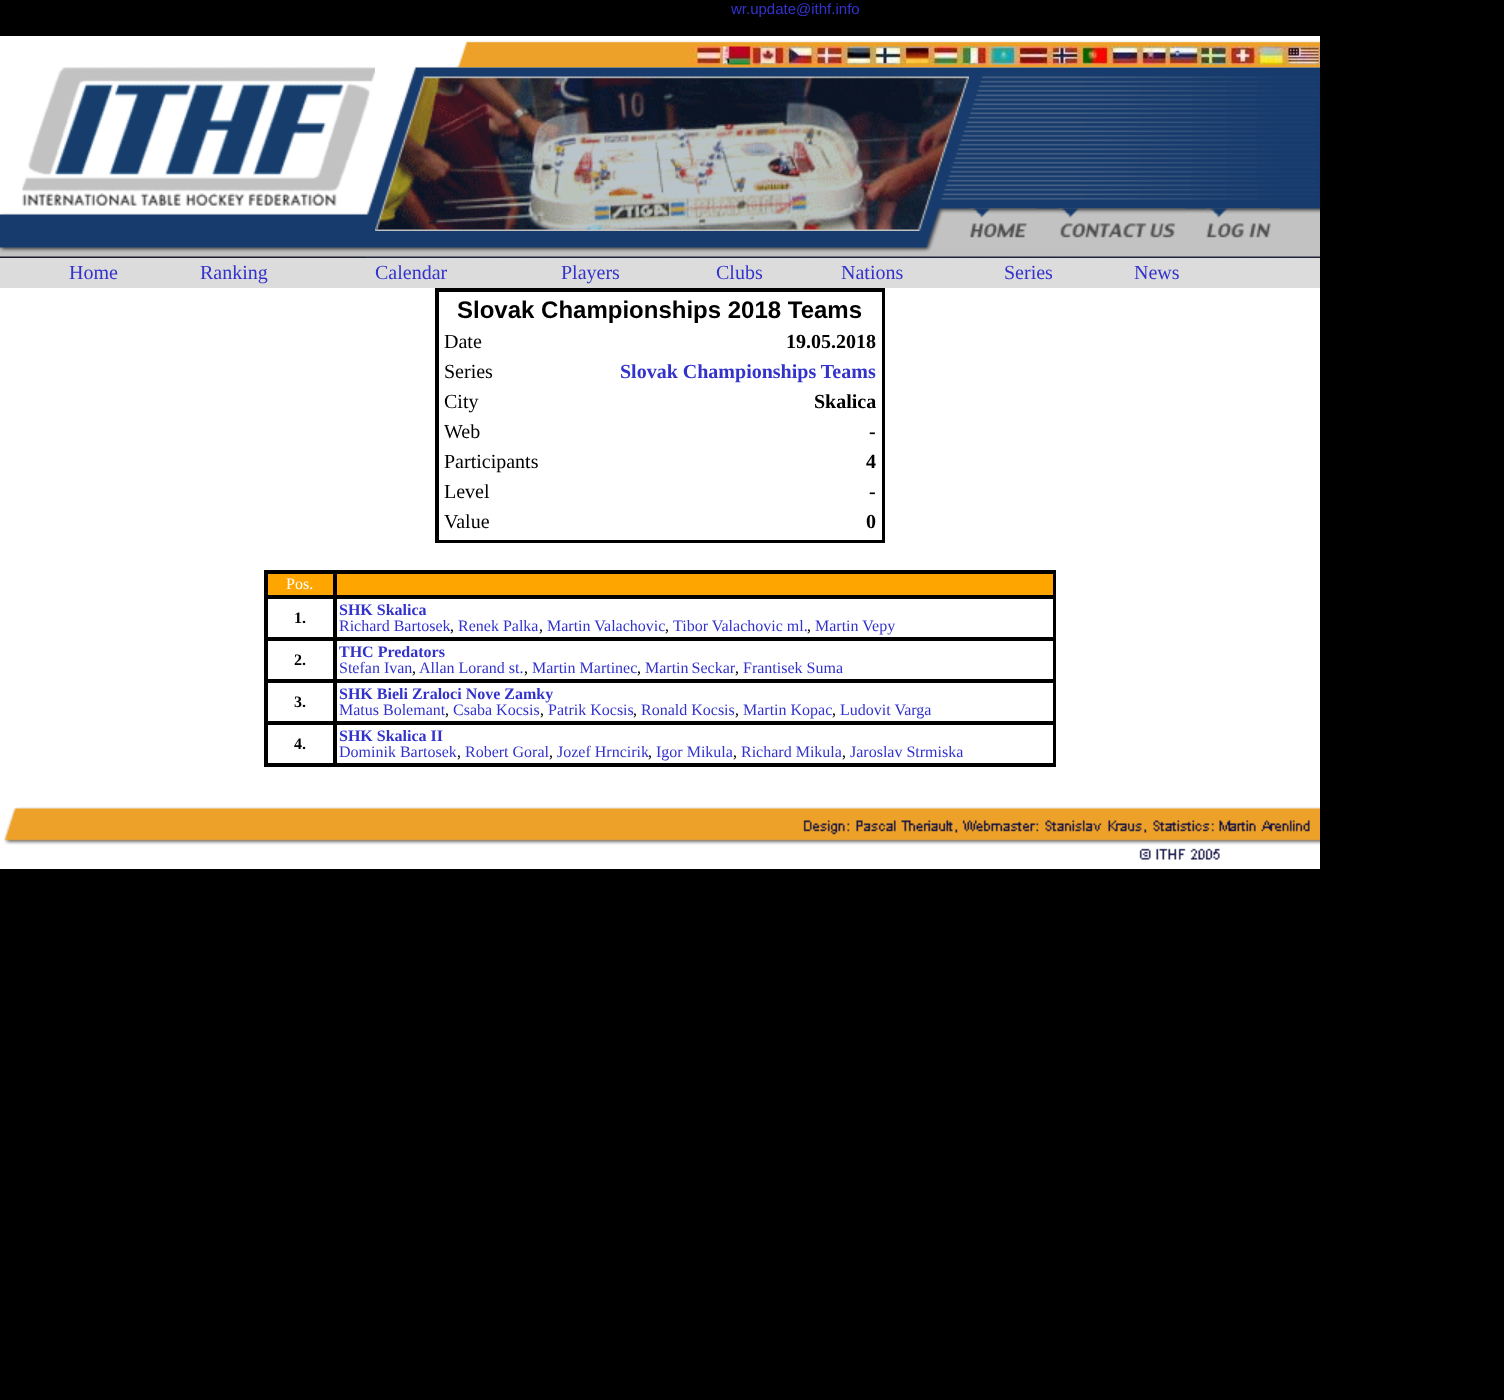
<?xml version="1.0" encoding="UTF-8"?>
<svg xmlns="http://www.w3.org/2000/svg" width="1504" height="1400">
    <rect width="100%" height="100%" fill="#000000"/>
    <text x="731" y="14" font-family="Liberation Sans" font-size="15" fill="#3333CC">wr.update@ithf.info</text>
    <rect x="0" y="36" width="1320" height="833" fill="#FFFFFF"/>
    <image x="415" y="41" width="905" height="27" href="img_01.png"/>
    <image x="690" y="46" width="630" height="19" href="img_02.png"/>
    <image x="0" y="67" width="1320" height="191" href="img_03.png"/>
    <image x="22" y="67" width="353" height="139" href="img_04.png"/>
    <image x="375" y="75" width="594" height="156" href="img_05.png"/>
    <image x="969" y="208" width="68" height="30" href="img_06.png"/>
    <image x="1057" y="208" width="128" height="30" href="img_07.png"/>
    <image x="1206" y="208" width="74" height="30" href="img_08.png"/>
    <rect x="0" y="258" width="1320" height="30" fill="#DCDCDC"/>
    <text x="69" y="279" font-family="Liberation Serif" font-size="20" fill="#3333CC">Home</text>
    <text x="200" y="279" font-family="Liberation Serif" font-size="20" fill="#3333CC">Ranking</text>
    <text x="375" y="279" font-family="Liberation Serif" font-size="20" fill="#3333CC">Calendar</text>
    <text x="561" y="279" font-family="Liberation Serif" font-size="20" fill="#3333CC">Players</text>
    <text x="716" y="279" font-family="Liberation Serif" font-size="20" fill="#3333CC">Clubs</text>
    <text x="841" y="279" font-family="Liberation Serif" font-size="20" fill="#3333CC">Nations</text>
    <text x="1004" y="279" font-family="Liberation Serif" font-size="20" fill="#3333CC">Series</text>
    <text x="1134" y="279" font-family="Liberation Serif" font-size="20" fill="#3333CC">News</text>
    <rect x="436" y="289" width="448" height="253" fill="none" stroke="#000000" stroke-width="2"/>
    <rect x="438" y="291" width="445" height="250" fill="none" stroke="#000000" stroke-width="2"/>
    <text x="457" y="318" font-family="Liberation Sans" font-size="24" font-weight="700" fill="#000000">Slovak Championships 2018 Teams</text>
    <text x="444" y="348" font-family="Liberation Serif" font-size="20" fill="#000000">Date</text>
    <text x="786" y="348" font-family="Liberation Serif" font-size="20" font-weight="700" fill="#000000">19.05.2018</text>
    <text x="444" y="378" font-family="Liberation Serif" font-size="20" fill="#000000">Series</text>
    <text x="620" y="378" font-family="Liberation Serif" font-size="20" font-weight="700" fill="#3333CC">Slovak Championships Teams</text>
    <text x="444" y="408" font-family="Liberation Serif" font-size="20" fill="#000000">City</text>
    <text x="814" y="408" font-family="Liberation Serif" font-size="20" font-weight="700" fill="#000000">Skalica</text>
    <text x="444" y="438" font-family="Liberation Serif" font-size="20" fill="#000000">Web</text>
    <text x="869" y="438" font-family="Liberation Serif" font-size="20" font-weight="700" fill="#000000">-</text>
    <text x="444" y="468" font-family="Liberation Serif" font-size="20" fill="#000000">Participants</text>
    <text x="866" y="468" font-family="Liberation Serif" font-size="20" font-weight="700" fill="#000000">4</text>
    <text x="444" y="498" font-family="Liberation Serif" font-size="20" fill="#000000">Level</text>
    <text x="869" y="498" font-family="Liberation Serif" font-size="20" font-weight="700" fill="#000000">-</text>
    <text x="444" y="528" font-family="Liberation Serif" font-size="20" fill="#000000">Value</text>
    <text x="866" y="528" font-family="Liberation Serif" font-size="20" font-weight="700" fill="#000000">0</text>
    <rect x="265" y="571" width="790" height="195" fill="none" stroke="#000000" stroke-width="2"/>
    <rect x="267" y="573" width="67" height="23" fill="#FFA500" stroke="#000000" stroke-width="2"/>
    <text x="286" y="589" font-family="Liberation Serif" font-size="16" fill="#FFFFFF">Pos.</text>
    <rect x="336" y="573" width="718" height="23" fill="#FFA500" stroke="#000000" stroke-width="2"/>
    <rect x="267" y="598" width="67" height="40" fill="none" stroke="#000000" stroke-width="2"/>
    <text x="294" y="623" font-family="Liberation Serif" font-size="16" font-weight="700" fill="#000000">1.</text>
    <rect x="336" y="598" width="718" height="40" fill="none" stroke="#000000" stroke-width="2"/>
    <text x="339" y="615" font-family="Liberation Serif" font-size="16" font-weight="700" fill="#3333CC">SHK Skalica</text>
    <text x="339" y="631" font-family="Liberation Serif" font-size="16" fill="#3333CC">Richard Bartosek</text>
    <text x="450" y="631" font-family="Liberation Serif" font-size="16" fill="#000000">,</text>
    <text x="458" y="631" font-family="Liberation Serif" font-size="16" fill="#3333CC">Renek Palka</text>
    <text x="539" y="631" font-family="Liberation Serif" font-size="16" fill="#000000">,</text>
    <text x="547" y="631" font-family="Liberation Serif" font-size="16" fill="#3333CC">Martin Valachovic</text>
    <text x="665" y="631" font-family="Liberation Serif" font-size="16" fill="#000000">,</text>
    <text x="673" y="631" font-family="Liberation Serif" font-size="16" fill="#3333CC">Tibor Valachovic ml.</text>
    <text x="807" y="631" font-family="Liberation Serif" font-size="16" fill="#000000">,</text>
    <text x="815" y="631" font-family="Liberation Serif" font-size="16" fill="#3333CC">Martin Vepy</text>
    <rect x="267" y="640" width="67" height="40" fill="none" stroke="#000000" stroke-width="2"/>
    <text x="294" y="665" font-family="Liberation Serif" font-size="16" font-weight="700" fill="#000000">2.</text>
    <rect x="336" y="640" width="718" height="40" fill="none" stroke="#000000" stroke-width="2"/>
    <text x="339" y="657" font-family="Liberation Serif" font-size="16" font-weight="700" fill="#3333CC">THC Predators</text>
    <text x="339" y="673" font-family="Liberation Serif" font-size="16" fill="#3333CC">Stefan Ivan</text>
    <text x="412" y="673" font-family="Liberation Serif" font-size="16" fill="#000000">,</text>
    <text x="419" y="673" font-family="Liberation Serif" font-size="16" fill="#3333CC">Allan Lorand st.</text>
    <text x="524" y="673" font-family="Liberation Serif" font-size="16" fill="#000000">,</text>
    <text x="532" y="673" font-family="Liberation Serif" font-size="16" fill="#3333CC">Martin Martinec</text>
    <text x="637" y="673" font-family="Liberation Serif" font-size="16" fill="#000000">,</text>
    <text x="645" y="673" word-spacing="-1" font-family="Liberation Serif" font-size="16" fill="#3333CC">Martin Seckar</text>
    <text x="735" y="673" font-family="Liberation Serif" font-size="16" fill="#000000">,</text>
    <text x="743" y="673" font-family="Liberation Serif" font-size="16" fill="#3333CC">Frantisek Suma</text>
    <rect x="267" y="682" width="67" height="40" fill="none" stroke="#000000" stroke-width="2"/>
    <text x="294" y="707" font-family="Liberation Serif" font-size="16" font-weight="700" fill="#000000">3.</text>
    <rect x="336" y="682" width="718" height="40" fill="none" stroke="#000000" stroke-width="2"/>
    <text x="339" y="699" font-family="Liberation Serif" font-size="16" font-weight="700" fill="#3333CC">SHK Bieli Zraloci Nove Zamky</text>
    <text x="339" y="715" font-family="Liberation Serif" font-size="16" fill="#3333CC">Matus Bolemant</text>
    <text x="445" y="715" font-family="Liberation Serif" font-size="16" fill="#000000">,</text>
    <text x="453" y="715" font-family="Liberation Serif" font-size="16" fill="#3333CC">Csaba Kocsis</text>
    <text x="540" y="715" font-family="Liberation Serif" font-size="16" fill="#000000">,</text>
    <text x="548" y="715" font-family="Liberation Serif" font-size="16" fill="#3333CC">Patrik Kocsis</text>
    <text x="633" y="715" font-family="Liberation Serif" font-size="16" fill="#000000">,</text>
    <text x="641" y="715" font-family="Liberation Serif" font-size="16" fill="#3333CC">Ronald Kocsis</text>
    <text x="735" y="715" font-family="Liberation Serif" font-size="16" fill="#000000">,</text>
    <text x="743" y="715" font-family="Liberation Serif" font-size="16" fill="#3333CC">Martin Kopac</text>
    <text x="832" y="715" font-family="Liberation Serif" font-size="16" fill="#000000">,</text>
    <text x="840" y="715" font-family="Liberation Serif" font-size="16" fill="#3333CC">Ludovit Varga</text>
    <rect x="267" y="724" width="67" height="40" fill="none" stroke="#000000" stroke-width="2"/>
    <text x="294" y="749" font-family="Liberation Serif" font-size="16" font-weight="700" fill="#000000">4.</text>
    <rect x="336" y="724" width="718" height="40" fill="none" stroke="#000000" stroke-width="2"/>
    <text x="339" y="741" font-family="Liberation Serif" font-size="16" font-weight="700" fill="#3333CC">SHK Skalica II</text>
    <text x="339" y="757" font-family="Liberation Serif" font-size="16" fill="#3333CC">Dominik Bartosek</text>
    <text x="457" y="757" font-family="Liberation Serif" font-size="16" fill="#000000">,</text>
    <text x="465" y="757" font-family="Liberation Serif" font-size="16" fill="#3333CC">Robert Goral</text>
    <text x="549" y="757" font-family="Liberation Serif" font-size="16" fill="#000000">,</text>
    <text x="557" y="757" font-family="Liberation Serif" font-size="16" fill="#3333CC">Jozef Hrncirik</text>
    <text x="648" y="757" font-family="Liberation Serif" font-size="16" fill="#000000">,</text>
    <text x="656" y="757" font-family="Liberation Serif" font-size="16" fill="#3333CC">Igor Mikula</text>
    <text x="733" y="757" font-family="Liberation Serif" font-size="16" fill="#000000">,</text>
    <text x="741" y="757" font-family="Liberation Serif" font-size="16" fill="#3333CC">Richard Mikula</text>
    <text x="842" y="757" font-family="Liberation Serif" font-size="16" fill="#000000">,</text>
    <text x="850" y="757" font-family="Liberation Serif" font-size="16" fill="#3333CC">Jaroslav Strmiska</text>
    <image x="4" y="807" width="1316" height="53" href="img_09.png"/>
</svg>
